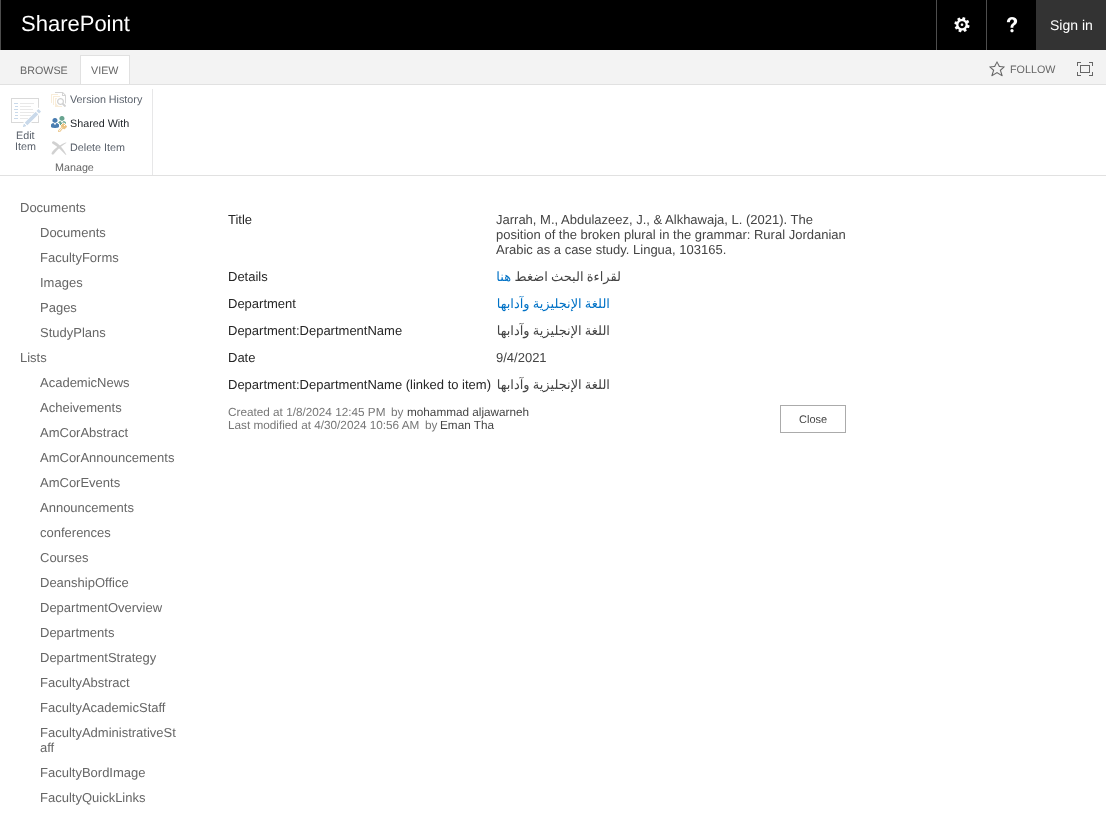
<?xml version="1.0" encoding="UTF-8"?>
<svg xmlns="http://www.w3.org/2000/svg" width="1106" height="814">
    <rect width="100%" height="100%" fill="#FFFFFF"/>
    <rect x="1" y="0" width="1035" height="50" fill="#000000"/>
    <rect x="0" y="0" width="1" height="50" fill="#4D4D4D"/>
    <text x="21" y="31" font-family="Liberation Sans" font-size="22" fill="#FFFFFF">SharePoint</text>
    <rect x="936" y="0" width="1" height="50" fill="#4D4D4D"/>
    <image x="954" y="17" width="16" height="16" href="img_01.png"/>
    <rect x="986" y="0" width="1" height="50" fill="#4D4D4D"/>
    <image x="1006" y="17" width="12" height="16" href="img_02.png"/>
    <rect x="1036" y="0" width="70" height="50" fill="#333333"/>
    <text x="1050" y="30" font-family="Liberation Sans" font-size="14" fill="#FFFFFF">Sign in</text>
    <rect x="0" y="50" width="1106" height="34" fill="#F3F3F3"/>
    <rect x="0" y="84" width="1106" height="1" fill="#E1E1E1"/>
    <text x="20" y="74" font-family="Liberation Sans" font-size="10.75" fill="#666666">BROWSE</text>
    <rect x="81" y="56" width="48" height="28" fill="#FFFFFF"/>
    <rect x="80" y="55" width="50" height="1" fill="#E1E1E1"/>
    <rect x="129" y="55" width="1" height="29" fill="#E1E1E1"/>
    <rect x="80" y="55" width="1" height="29" fill="#E1E1E1"/>
    <text x="91" y="74" font-family="Liberation Sans" font-size="10.75" fill="#666666">VIEW</text>
    <image x="989" y="61" width="16" height="16" href="img_03.png"/>
    <text x="1010" y="73" font-family="Liberation Sans" font-size="10.75" fill="#666666">FOLLOW</text>
    <image x="1077" y="62" width="16" height="14" href="img_04.png"/>
    <rect x="0" y="175" width="1106" height="1" fill="#E1E1E1"/>
    <image x="11" y="98" width="30" height="29" href="img_05.png"/>
    <text x="16" y="139" font-family="Liberation Sans" font-size="10.75" fill="#5B626C">Edit</text>
    <text x="15" y="150" font-family="Liberation Sans" font-size="10.75" fill="#5B626C">Item</text>
    <image x="51" y="92" width="15" height="15" href="img_06.png"/>
    <text x="70" y="103" font-family="Liberation Sans" font-size="10.75" fill="#5B626C">Version History</text>
    <image x="51" y="116" width="16" height="16" href="img_07.png"/>
    <text x="70" y="127" font-family="Liberation Sans" font-size="10.75" fill="#23272C">Shared With</text>
    <image x="51" y="141" width="16" height="14" href="img_08.png"/>
    <text x="70" y="151" font-family="Liberation Sans" font-size="10.75" fill="#5B626C">Delete Item</text>
    <text x="55" y="171" font-family="Liberation Sans" font-size="10.75" fill="#666666">Manage</text>
    <rect x="152" y="89" width="1" height="86" fill="#E7E7E8"/>
    <text x="20" y="212" font-family="Liberation Sans" font-size="13" fill="#666666">Documents</text>
    <text font-family="Liberation Sans" font-size="13" fill="#666666">
        <tspan x="40" y="237">Documents</tspan>
        <tspan x="40" y="262">FacultyForms</tspan>
        <tspan x="40" y="287">Images</tspan>
        <tspan x="40" y="312">Pages</tspan>
        <tspan x="40" y="337">StudyPlans</tspan>
    </text>
    <text x="20" y="362" font-family="Liberation Sans" font-size="13" fill="#666666">Lists</text>
    <text font-family="Liberation Sans" font-size="13" fill="#666666">
        <tspan x="40" y="387">AcademicNews</tspan>
        <tspan x="40" y="412">Acheivements</tspan>
        <tspan x="40" y="437">AmCorAbstract</tspan>
        <tspan x="40" y="462">AmCorAnnouncements</tspan>
        <tspan x="40" y="487">AmCorEvents</tspan>
        <tspan x="40" y="512">Announcements</tspan>
        <tspan x="40" y="537">conferences</tspan>
        <tspan x="40" y="562">Courses</tspan>
        <tspan x="40" y="587">DeanshipOffice</tspan>
        <tspan x="40" y="612">DepartmentOverview</tspan>
        <tspan x="40" y="637">Departments</tspan>
        <tspan x="40" y="662">DepartmentStrategy</tspan>
        <tspan x="40" y="687">FacultyAbstract</tspan>
        <tspan x="40" y="712">FacultyAcademicStaff</tspan>
        <tspan x="40" y="737">FacultyAdministrativeSt</tspan>
        <tspan x="40" y="752">aff</tspan>
        <tspan x="40" y="777">FacultyBordImage</tspan>
        <tspan x="40" y="802">FacultyQuickLinks</tspan>
    </text>
    <text x="228" y="224" font-family="Liberation Sans" font-size="13" fill="#262626">Title</text>
    <text font-family="Liberation Sans" font-size="13" fill="#444444">
        <tspan x="496" y="224">Jarrah, M., Abdulazeez, J., &amp; Alkhawaja, L. (2021). The</tspan>
        <tspan x="496" y="239">position of the broken plural in the grammar: Rural Jordanian</tspan>
        <tspan x="496" y="254">Arabic as a case study. Lingua, 103165.</tspan>
    </text>
    <text x="228" y="281" font-family="Liberation Sans" font-size="13" fill="#262626">Details</text>
    <text x="511" y="281" font-family="DejaVu Sans" font-size="13" direction="rtl" fill="#0072C6">هنا</text>
    <text x="621" y="281" word-spacing="-1" font-family="DejaVu Sans" font-size="13" direction="rtl" fill="#444444">لقراءة البحث اضغط</text>
    <text x="228" y="308" font-family="Liberation Sans" font-size="13" fill="#262626">Department</text>
    <text x="610" y="308" word-spacing="-1" font-family="DejaVu Sans" font-size="13" direction="rtl" fill="#0072C6">اللغة الإنجليزية وآدابها</text>
    <text x="228" y="335" font-family="Liberation Sans" font-size="13" fill="#262626">Department:DepartmentName</text>
    <text x="610" y="335" word-spacing="-1" font-family="DejaVu Sans" font-size="13" direction="rtl" fill="#444444">اللغة الإنجليزية وآدابها</text>
    <text x="228" y="362" font-family="Liberation Sans" font-size="13" fill="#262626">Date</text>
    <text x="496" y="362" font-family="Liberation Sans" font-size="13" fill="#444444">9/4/2021</text>
    <text x="228" y="389" font-family="Liberation Sans" font-size="13" fill="#262626">Department:DepartmentName (linked to item)</text>
    <text x="610" y="389" word-spacing="-1" font-family="DejaVu Sans" font-size="13" direction="rtl" fill="#444444">اللغة الإنجليزية وآدابها</text>
    <text x="228" y="416" font-family="Liberation Sans" font-size="11.75" fill="#777777">Created at 1/8/2024 12:45 PM</text>
    <text x="391" y="416" font-family="Liberation Sans" font-size="11.75" fill="#777777">by</text>
    <text x="407" y="416" font-family="Liberation Sans" font-size="11.75" fill="#444444">mohammad aljawarneh</text>
    <text x="228" y="429" font-family="Liberation Sans" font-size="11.75" fill="#777777">Last modified at 4/30/2024 10:56 AM</text>
    <text x="425" y="429" font-family="Liberation Sans" font-size="11.75" fill="#777777">by</text>
    <text x="440" y="429" font-family="Liberation Sans" font-size="11.75" fill="#444444">Eman Tha</text>
    <rect x="780.5" y="405.5" width="65" height="27" fill="none" stroke="#ABABAB"/>
    <text x="799" y="423" font-family="Liberation Sans" font-size="11" fill="#444444">Close</text>
</svg>
